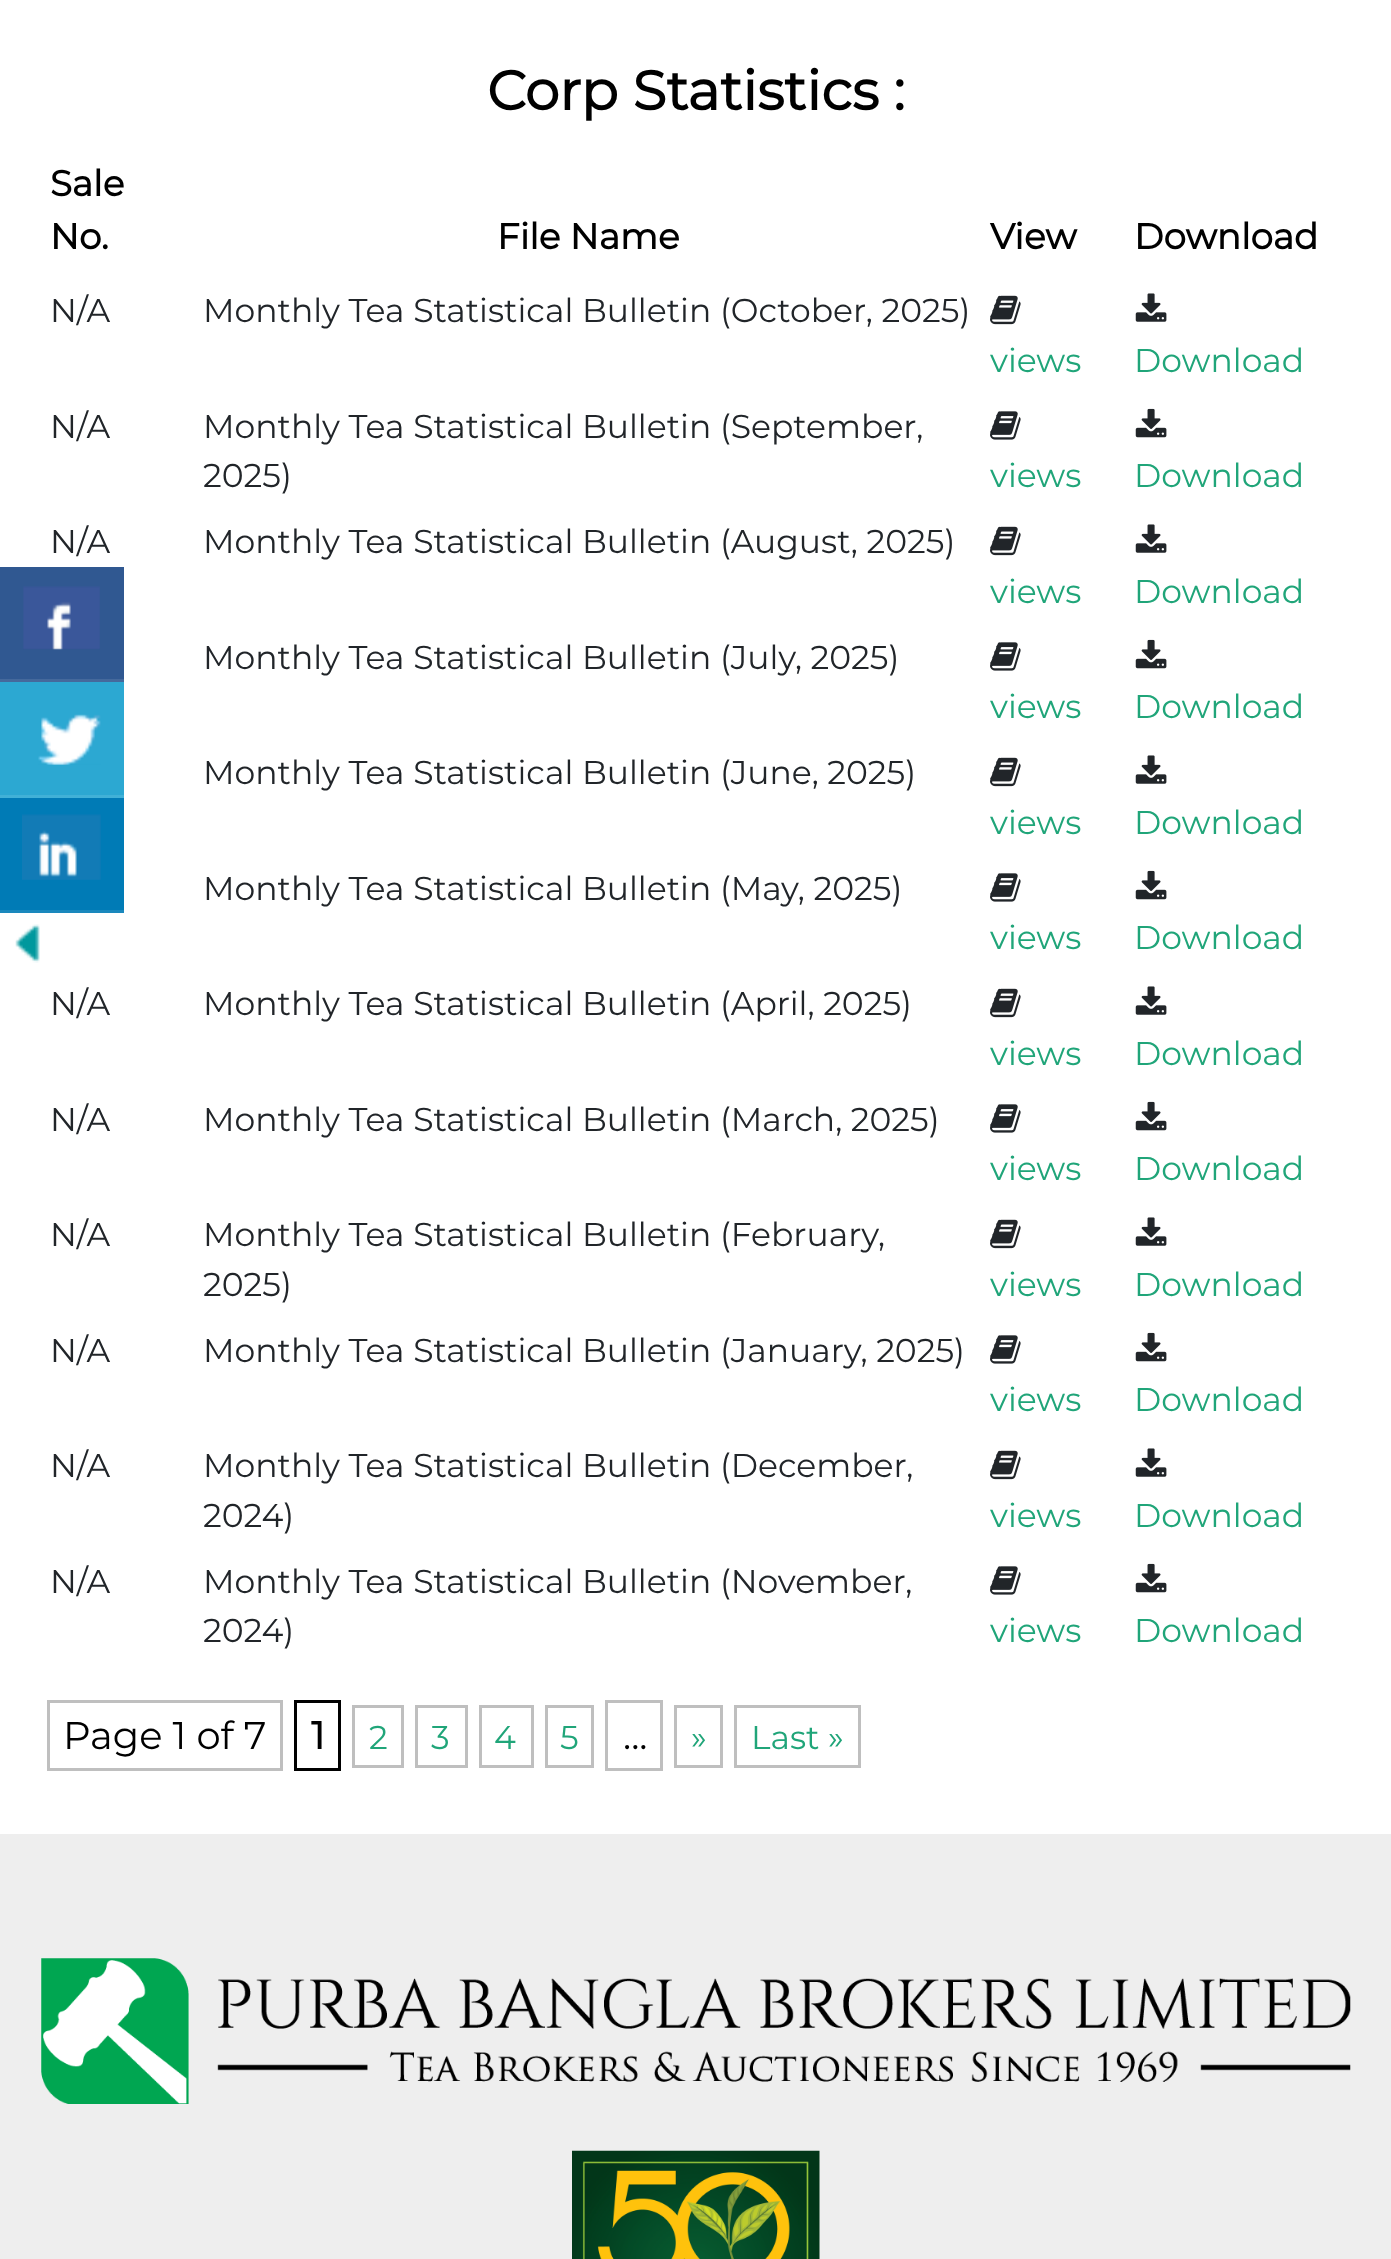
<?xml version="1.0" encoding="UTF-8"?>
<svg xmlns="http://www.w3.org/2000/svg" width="1391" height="2259">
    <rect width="100%" height="100%" fill="#FFFFFF"/>
    <text x="487" y="110" font-family="Montserrat" font-size="55" font-weight="700" fill="#000000">Corp Statistics :</text>
    <text font-family="Montserrat" font-size="35.75" font-weight="700" fill="#000000">
        <tspan x="50" y="196">Sale</tspan>
        <tspan x="50" y="249">No.</tspan>
    </text>
    <text x="497" y="249" font-family="Montserrat" font-size="35.75" font-weight="700" fill="#000000">File Name</text>
    <text x="990" y="249" font-family="Montserrat" font-size="35.75" font-weight="700" fill="#000000">View</text>
    <text x="1134" y="249" font-family="Montserrat" font-size="35.75" font-weight="700" fill="#000000">Download</text>
    <text x="50" y="322" font-family="Montserrat" font-size="33" font-weight="100" fill="#212529">N/A</text>
    <text x="203" y="322" font-family="Montserrat" font-size="33" font-weight="100" fill="#212529">Monthly Tea Statistical Bulletin (October, 2025)</text>
    <image x="990" y="295" width="31" height="30" href="img_01.png"/>
    <text x="990" y="372" font-family="Montserrat" font-size="33" font-weight="100" fill="#20A579">views</text>
    <image x="1135" y="293" width="32" height="29" href="img_02.png"/>
    <text x="1134" y="372" font-family="Montserrat" font-size="33" font-weight="100" fill="#20A579">Download</text>
    <text x="50" y="438" font-family="Montserrat" font-size="33" font-weight="100" fill="#212529">N/A</text>
    <text font-family="Montserrat" font-size="33" font-weight="100" fill="#212529">
        <tspan x="203" y="438">Monthly Tea Statistical Bulletin (September,</tspan>
        <tspan x="203" y="487">2025)</tspan>
    </text>
    <image x="990" y="411" width="31" height="29" href="img_03.png"/>
    <text x="990" y="487" font-family="Montserrat" font-size="33" font-weight="100" fill="#20A579">views</text>
    <image x="1135" y="408" width="32" height="30" href="img_04.png"/>
    <text x="1134" y="487" font-family="Montserrat" font-size="33" font-weight="100" fill="#20A579">Download</text>
    <text x="50" y="553" font-family="Montserrat" font-size="33" font-weight="100" fill="#212529">N/A</text>
    <text x="203" y="553" font-family="Montserrat" font-size="33" font-weight="100" fill="#212529">Monthly Tea Statistical Bulletin (August, 2025)</text>
    <image x="990" y="526" width="31" height="30" href="img_01.png"/>
    <text x="990" y="603" font-family="Montserrat" font-size="33" font-weight="100" fill="#20A579">views</text>
    <image x="1135" y="524" width="32" height="29" href="img_02.png"/>
    <text x="1134" y="603" font-family="Montserrat" font-size="33" font-weight="100" fill="#20A579">Download</text>
    <text x="203" y="669" font-family="Montserrat" font-size="33" font-weight="100" fill="#212529">Monthly Tea Statistical Bulletin (July, 2025)</text>
    <image x="990" y="642" width="31" height="29" href="img_03.png"/>
    <text x="990" y="718" font-family="Montserrat" font-size="33" font-weight="100" fill="#20A579">views</text>
    <image x="1135" y="639" width="32" height="30" href="img_04.png"/>
    <text x="1134" y="718" font-family="Montserrat" font-size="33" font-weight="100" fill="#20A579">Download</text>
    <text x="203" y="784" font-family="Montserrat" font-size="33" font-weight="100" fill="#212529">Monthly Tea Statistical Bulletin (June, 2025)</text>
    <image x="990" y="757" width="31" height="30" href="img_01.png"/>
    <text x="990" y="834" font-family="Montserrat" font-size="33" font-weight="100" fill="#20A579">views</text>
    <image x="1135" y="755" width="32" height="29" href="img_02.png"/>
    <text x="1134" y="834" font-family="Montserrat" font-size="33" font-weight="100" fill="#20A579">Download</text>
    <text x="203" y="900" font-family="Montserrat" font-size="33" font-weight="100" fill="#212529">Monthly Tea Statistical Bulletin (May, 2025)</text>
    <image x="990" y="873" width="31" height="29" href="img_03.png"/>
    <text x="990" y="949" font-family="Montserrat" font-size="33" font-weight="100" fill="#20A579">views</text>
    <image x="1135" y="870" width="32" height="30" href="img_04.png"/>
    <text x="1134" y="949" font-family="Montserrat" font-size="33" font-weight="100" fill="#20A579">Download</text>
    <text x="50" y="1015" font-family="Montserrat" font-size="33" font-weight="100" fill="#212529">N/A</text>
    <text x="203" y="1015" font-family="Montserrat" font-size="33" font-weight="100" fill="#212529">Monthly Tea Statistical Bulletin (April, 2025)</text>
    <image x="990" y="988" width="31" height="30" href="img_01.png"/>
    <text x="990" y="1065" font-family="Montserrat" font-size="33" font-weight="100" fill="#20A579">views</text>
    <image x="1135" y="986" width="32" height="29" href="img_02.png"/>
    <text x="1134" y="1065" font-family="Montserrat" font-size="33" font-weight="100" fill="#20A579">Download</text>
    <text x="50" y="1131" font-family="Montserrat" font-size="33" font-weight="100" fill="#212529">N/A</text>
    <text x="203" y="1131" font-family="Montserrat" font-size="33" font-weight="100" fill="#212529">Monthly Tea Statistical Bulletin (March, 2025)</text>
    <image x="990" y="1104" width="31" height="29" href="img_03.png"/>
    <text x="990" y="1180" font-family="Montserrat" font-size="33" font-weight="100" fill="#20A579">views</text>
    <image x="1135" y="1101" width="32" height="30" href="img_04.png"/>
    <text x="1134" y="1180" font-family="Montserrat" font-size="33" font-weight="100" fill="#20A579">Download</text>
    <text x="50" y="1246" font-family="Montserrat" font-size="33" font-weight="100" fill="#212529">N/A</text>
    <text font-family="Montserrat" font-size="33" font-weight="100" fill="#212529">
        <tspan x="203" y="1246">Monthly Tea Statistical Bulletin (February,</tspan>
        <tspan x="203" y="1296">2025)</tspan>
    </text>
    <image x="990" y="1219" width="31" height="30" href="img_01.png"/>
    <text x="990" y="1296" font-family="Montserrat" font-size="33" font-weight="100" fill="#20A579">views</text>
    <image x="1135" y="1217" width="32" height="29" href="img_02.png"/>
    <text x="1134" y="1296" font-family="Montserrat" font-size="33" font-weight="100" fill="#20A579">Download</text>
    <text x="50" y="1362" font-family="Montserrat" font-size="33" font-weight="100" fill="#212529">N/A</text>
    <text x="203" y="1362" font-family="Montserrat" font-size="33" font-weight="100" fill="#212529">Monthly Tea Statistical Bulletin (January, 2025)</text>
    <image x="990" y="1335" width="31" height="29" href="img_03.png"/>
    <text x="990" y="1411" font-family="Montserrat" font-size="33" font-weight="100" fill="#20A579">views</text>
    <image x="1135" y="1332" width="32" height="30" href="img_04.png"/>
    <text x="1134" y="1411" font-family="Montserrat" font-size="33" font-weight="100" fill="#20A579">Download</text>
    <text x="50" y="1477" font-family="Montserrat" font-size="33" font-weight="100" fill="#212529">N/A</text>
    <text font-family="Montserrat" font-size="33" font-weight="100" fill="#212529">
        <tspan x="203" y="1477">Monthly Tea Statistical Bulletin (December,</tspan>
        <tspan x="203" y="1527">2024)</tspan>
    </text>
    <image x="990" y="1450" width="31" height="30" href="img_01.png"/>
    <text x="990" y="1527" font-family="Montserrat" font-size="33" font-weight="100" fill="#20A579">views</text>
    <image x="1135" y="1448" width="32" height="29" href="img_02.png"/>
    <text x="1134" y="1527" font-family="Montserrat" font-size="33" font-weight="100" fill="#20A579">Download</text>
    <text x="50" y="1593" font-family="Montserrat" font-size="33" font-weight="100" fill="#212529">N/A</text>
    <text font-family="Montserrat" font-size="33" font-weight="100" fill="#212529">
        <tspan x="203" y="1593">Monthly Tea Statistical Bulletin (November,</tspan>
        <tspan x="203" y="1642">2024)</tspan>
    </text>
    <image x="990" y="1566" width="31" height="29" href="img_03.png"/>
    <text x="990" y="1642" font-family="Montserrat" font-size="33" font-weight="100" fill="#20A579">views</text>
    <image x="1135" y="1563" width="32" height="30" href="img_04.png"/>
    <text x="1134" y="1642" font-family="Montserrat" font-size="33" font-weight="100" fill="#20A579">Download</text>
    <rect x="48.5" y="1701.5" width="233" height="68" fill="none" stroke="#BFBFBF" stroke-width="3"/>
    <text x="63" y="1749" font-family="Montserrat" font-size="38.5" font-weight="100" fill="#000000">Page 1 of 7</text>
    <rect x="295.5" y="1701.5" width="44" height="68" fill="none" stroke="#000000" stroke-width="3"/>
    <text x="311" y="1749" font-family="Montserrat" font-size="38.5" font-weight="700" fill="#000000">1</text>
    <rect x="353.5" y="1706.5" width="49" height="60" fill="none" stroke="#BFBFBF" stroke-width="3"/>
    <text x="369" y="1749" font-family="Montserrat" font-size="33" font-weight="100" fill="#20A579">2</text>
    <rect x="416.5" y="1706.5" width="50" height="60" fill="none" stroke="#BFBFBF" stroke-width="3"/>
    <text x="431" y="1749" font-family="Montserrat" font-size="33" font-weight="100" fill="#20A579">3</text>
    <rect x="480.5" y="1706.5" width="52" height="60" fill="none" stroke="#BFBFBF" stroke-width="3"/>
    <text x="494" y="1749" font-family="Montserrat" font-size="33" font-weight="100" fill="#20A579">4</text>
    <rect x="546.5" y="1706.5" width="46" height="60" fill="none" stroke="#BFBFBF" stroke-width="3"/>
    <text x="560" y="1749" font-family="Montserrat" font-size="33" font-weight="100" fill="#20A579">5</text>
    <rect x="675.5" y="1706.5" width="46" height="60" fill="none" stroke="#BFBFBF" stroke-width="3"/>
    <text x="691" y="1749" font-family="Montserrat" font-size="33" font-weight="100" fill="#20A579">»</text>
    <rect x="735.5" y="1706.5" width="124" height="60" fill="none" stroke="#BFBFBF" stroke-width="3"/>
    <text x="751" y="1749" font-family="Montserrat" font-size="33" font-weight="100" fill="#20A579">Last »</text>
    <rect x="606.5" y="1701.5" width="55" height="68" fill="none" stroke="#BFBFBF" stroke-width="3"/>
    <text x="623" y="1749" font-family="Montserrat" font-size="38.5" font-weight="100" fill="#000000">...</text>
    <rect x="0" y="567" width="124" height="112" fill="#305891"/>
    <rect x="0" y="679" width="124" height="3" fill="#45699C"/>
    <image x="23" y="586" width="77" height="64" href="img_05.png"/>
    <rect x="0" y="682" width="124" height="113" fill="#2CA8D2"/>
    <rect x="0" y="795" width="124" height="3" fill="#41B1D7"/>
    <image x="38" y="714" width="63" height="51" href="img_06.png"/>
    <rect x="0" y="798" width="124" height="112" fill="#007BB6"/>
    <rect x="0" y="910" width="124" height="3" fill="#1A88BD"/>
    <image x="22" y="814" width="79" height="66" href="img_07.png"/>
    <image x="15" y="924" width="25" height="39" href="img_08.png"/>
    <rect x="0" y="1834" width="1391" height="425" fill="#EEEEEE"/>
    <image x="41" y="1958" width="1310" height="146" href="img_09.png"/>
    <image x="572" y="2150" width="248" height="109" href="img_10.png"/>
</svg>
